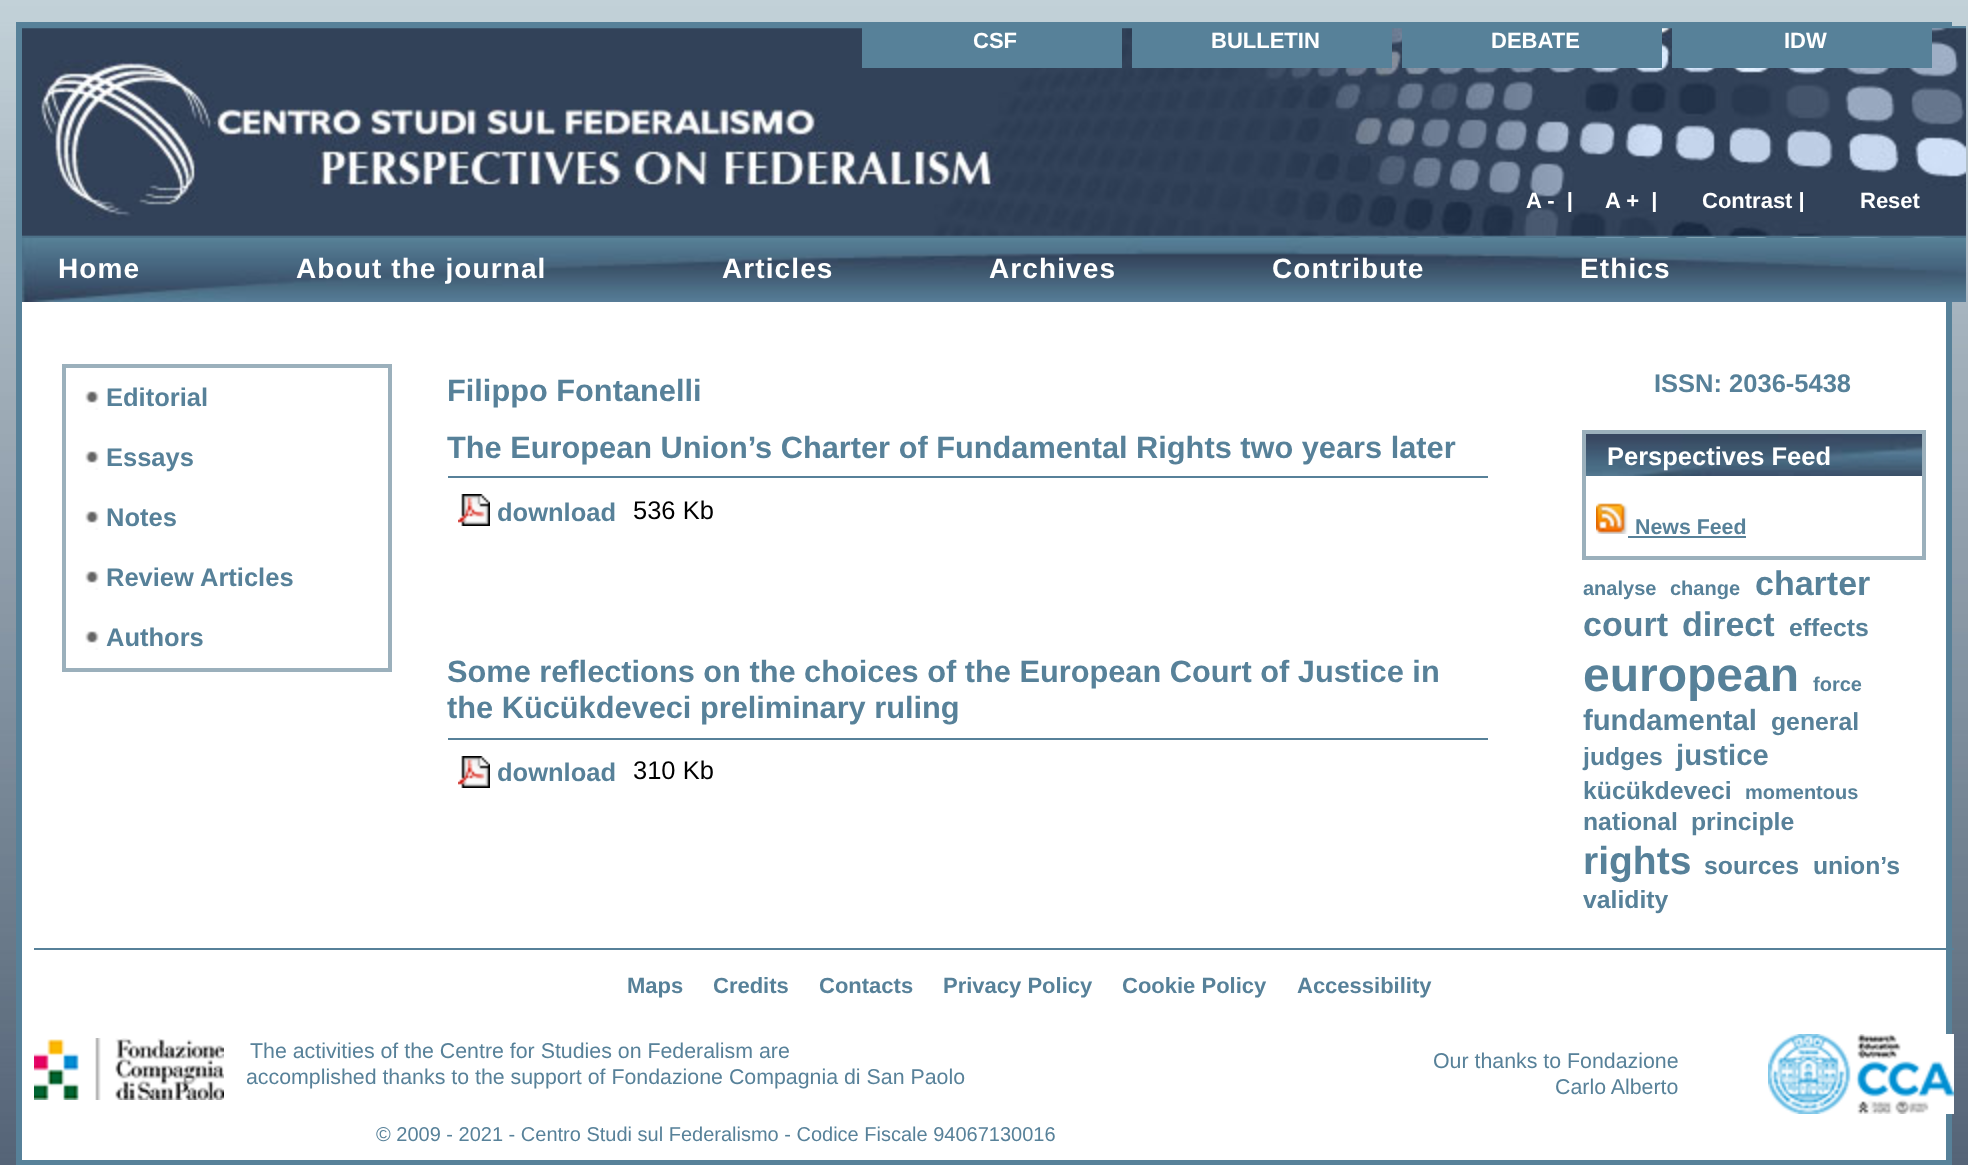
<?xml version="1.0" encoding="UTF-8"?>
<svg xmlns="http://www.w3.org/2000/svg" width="1968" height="1165">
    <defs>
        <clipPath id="clip1"><rect x="1506" y="188" width="82" height="24"/></clipPath>
        <clipPath id="clip2"><rect x="1588" y="188" width="82" height="24"/></clipPath>
        <clipPath id="clip3"><rect x="1670" y="188" width="160" height="24"/></clipPath>
    </defs>
    <rect width="100%" height="100%" fill="#FFFFFF"/>
    <image x="0" y="0" width="1968" height="1165" href="img_01.png"/>
    <rect x="22" y="302" width="1924" height="858" fill="#FFFFFF"/>
    <rect x="16" y="22" width="1936" height="4" fill="#578199"/>
    <rect x="1946" y="22" width="6" height="1143" fill="#578199"/>
    <rect x="16" y="1160" width="1936" height="5" fill="#578199"/>
    <rect x="16" y="22" width="6" height="1143" fill="#578199"/>
    <image x="22" y="28" width="1944" height="210" href="img_02.png"/>
    <rect x="22" y="26" width="1944" height="2" fill="#578199"/>
    <rect x="862" y="28" width="260" height="40" fill="#578199"/>
    <text x="973" y="48" font-family="Liberation Sans" font-size="22" font-weight="700" fill="#FFFFFF">CSF</text>
    <rect x="1132" y="28" width="260" height="40" fill="#578199"/>
    <text x="1211" y="48" font-family="Liberation Sans" font-size="22" font-weight="700" fill="#FFFFFF">BULLETIN</text>
    <rect x="1402" y="28" width="260" height="40" fill="#578199"/>
    <text x="1491" y="48" font-family="Liberation Sans" font-size="22" font-weight="700" fill="#FFFFFF">DEBATE</text>
    <rect x="1672" y="28" width="260" height="40" fill="#578199"/>
    <text x="1784" y="48" font-family="Liberation Sans" font-size="22" font-weight="700" fill="#FFFFFF">IDW</text>
    <g clip-path="url(#clip1)">
        <text x="1526" y="208" font-family="Liberation Sans" font-size="22" font-weight="700" fill="#FFFFFF" xml:space="preserve">A -  |</text>
    </g>
    <g clip-path="url(#clip2)">
        <text x="1605" y="208" font-family="Liberation Sans" font-size="22" font-weight="700" fill="#FFFFFF" xml:space="preserve">A +  |</text>
    </g>
    <g clip-path="url(#clip3)">
        <text x="1702" y="208" font-family="Liberation Sans" font-size="22" font-weight="700" fill="#FFFFFF">Contrast |</text>
    </g>
    <text x="1860" y="208" font-family="Liberation Sans" font-size="22" font-weight="700" fill="#FFFFFF">Reset</text>
    <image x="22" y="238" width="1944" height="64" href="img_03.png"/>
    <text x="58" y="278" font-family="Liberation Sans" font-size="28" font-weight="700" letter-spacing="1.1" fill="#FFFFFF">Home</text>
    <text x="296" y="278" font-family="Liberation Sans" font-size="28" font-weight="700" letter-spacing="1.1" fill="#FFFFFF">About the journal</text>
    <text x="722" y="278" font-family="Liberation Sans" font-size="28" font-weight="700" letter-spacing="1.1" fill="#FFFFFF">Articles</text>
    <text x="989" y="278" font-family="Liberation Sans" font-size="28" font-weight="700" letter-spacing="1.1" fill="#FFFFFF">Archives</text>
    <text x="1272" y="278" font-family="Liberation Sans" font-size="28" font-weight="700" letter-spacing="1.1" fill="#FFFFFF">Contribute</text>
    <text x="1580" y="278" font-family="Liberation Sans" font-size="28" font-weight="700" letter-spacing="1.1" fill="#FFFFFF">Ethics</text>
    <rect x="64" y="366" width="326" height="304" fill="none" stroke="#9BB0BC" stroke-width="4"/>
    <image x="85" y="391" width="14" height="19" href="img_04.png"/>
    <text x="106" y="406" font-family="Liberation Sans" font-size="25.5" font-weight="700" fill="#578199">Editorial</text>
    <image x="85" y="451" width="14" height="19" href="img_04.png"/>
    <text x="106" y="466" font-family="Liberation Sans" font-size="25.5" font-weight="700" fill="#578199">Essays</text>
    <image x="85" y="511" width="14" height="19" href="img_04.png"/>
    <text x="106" y="526" font-family="Liberation Sans" font-size="25.5" font-weight="700" fill="#578199">Notes</text>
    <image x="85" y="571" width="14" height="19" href="img_04.png"/>
    <text x="106" y="586" font-family="Liberation Sans" font-size="25.5" font-weight="700" fill="#578199">Review Articles</text>
    <image x="85" y="631" width="14" height="19" href="img_04.png"/>
    <text x="106" y="646" font-family="Liberation Sans" font-size="25.5" font-weight="700" fill="#578199">Authors</text>
    <text x="447" y="401" font-family="Liberation Sans" font-size="30.75" font-weight="700" fill="#578199">Filippo Fontanelli</text>
    <rect x="448" y="476" width="1040" height="2" fill="#578199"/>
    <text x="447" y="458" font-family="Liberation Sans" font-size="30.75" font-weight="700" fill="#578199">The European Union’s Charter of Fundamental Rights two years later</text>
    <image x="458" y="494" width="32" height="32" href="img_05.png"/>
    <text x="497" y="521" font-family="Liberation Sans" font-size="25.5" font-weight="700" fill="#578199">download</text>
    <text x="633" y="519" font-family="Liberation Sans" font-size="25.5" fill="#000000">536 Kb</text>
    <rect x="448" y="738" width="1040" height="2" fill="#578199"/>
    <text font-family="Liberation Sans" font-size="30.75" font-weight="700" fill="#578199">
        <tspan x="447" y="682">Some reflections on the choices of the European Court of Justice in</tspan>
        <tspan x="447" y="718">the Kücükdeveci preliminary ruling</tspan>
    </text>
    <image x="458" y="756" width="32" height="32" href="img_05.png"/>
    <text x="497" y="781" font-family="Liberation Sans" font-size="25.5" font-weight="700" fill="#578199">download</text>
    <text x="633" y="779" font-family="Liberation Sans" font-size="25.5" fill="#000000">310 Kb</text>
    <text x="1654" y="392" font-family="Liberation Sans" font-size="25.5" font-weight="700" fill="#578199">ISSN: 2036-5438</text>
    <rect x="1584" y="432" width="340" height="126" fill="none" stroke="#9BB0BC" stroke-width="4"/>
    <image x="1586" y="434" width="336" height="42" href="img_06.png"/>
    <text x="1607" y="465" font-family="Liberation Sans" font-size="25.5" font-weight="700" fill="#FFFFFF">Perspectives Feed</text>
    <image x="1596" y="503" width="32" height="31" href="img_07.png"/>
    <text x="1635" y="534" font-family="Liberation Sans" font-size="21.35" font-weight="700" fill="#578199">News Feed</text>
    <rect x="1628" y="536" width="118" height="2" fill="#578199"/>
    <text x="1583" y="595" font-family="Liberation Sans" font-size="20" font-weight="700" fill="#578199">analyse</text>
    <text x="1670" y="595" font-family="Liberation Sans" font-size="20" font-weight="700" fill="#578199">change</text>
    <text x="1755" y="595" font-family="Liberation Sans" font-size="34" font-weight="700" fill="#578199">charter</text>
    <text x="1583" y="636" font-family="Liberation Sans" font-size="34" font-weight="700" fill="#578199">court</text>
    <text x="1682" y="636" font-family="Liberation Sans" font-size="34" font-weight="700" fill="#578199">direct</text>
    <text x="1789" y="636" font-family="Liberation Sans" font-size="24.75" font-weight="700" fill="#578199">effects</text>
    <text x="1583" y="691" font-family="Liberation Sans" font-size="48" font-weight="700" fill="#578199">european</text>
    <text x="1813" y="691" font-family="Liberation Sans" font-size="20" font-weight="700" fill="#578199">force</text>
    <text x="1583" y="730" font-family="Liberation Sans" font-size="29.25" font-weight="700" fill="#578199">fundamental</text>
    <text x="1771" y="730" font-family="Liberation Sans" font-size="24.75" font-weight="700" fill="#578199">general</text>
    <text x="1583" y="765" font-family="Liberation Sans" font-size="24.75" font-weight="700" fill="#578199">judges</text>
    <text x="1676" y="765" font-family="Liberation Sans" font-size="29.25" font-weight="700" fill="#578199">justice</text>
    <text x="1583" y="799" font-family="Liberation Sans" font-size="24.75" font-weight="700" fill="#578199">kücükdeveci</text>
    <text x="1745" y="799" font-family="Liberation Sans" font-size="20" font-weight="700" fill="#578199">momentous</text>
    <text x="1583" y="830" font-family="Liberation Sans" font-size="24.75" font-weight="700" fill="#578199">national</text>
    <text x="1691" y="830" font-family="Liberation Sans" font-size="24.75" font-weight="700" fill="#578199">principle</text>
    <text x="1583" y="874" font-family="Liberation Sans" font-size="39" font-weight="700" fill="#578199">rights</text>
    <text x="1704" y="874" font-family="Liberation Sans" font-size="24.75" font-weight="700" fill="#578199">sources</text>
    <text x="1813" y="874" font-family="Liberation Sans" font-size="24.75" font-weight="700" fill="#578199">union’s</text>
    <text x="1583" y="908" font-family="Liberation Sans" font-size="24.75" font-weight="700" fill="#578199">validity</text>
    <rect x="34" y="948" width="1920" height="2" fill="#578199"/>
    <text x="627" y="993" font-family="Liberation Sans" font-size="22" font-weight="700" fill="#578199">Maps</text>
    <text x="713" y="993" font-family="Liberation Sans" font-size="22" font-weight="700" fill="#578199">Credits</text>
    <text x="819" y="993" font-family="Liberation Sans" font-size="22" font-weight="700" fill="#578199">Contacts</text>
    <text x="943" y="993" font-family="Liberation Sans" font-size="22" font-weight="700" fill="#578199">Privacy Policy</text>
    <text x="1122" y="993" font-family="Liberation Sans" font-size="22" font-weight="700" fill="#578199">Cookie Policy</text>
    <text x="1297" y="993" font-family="Liberation Sans" font-size="22" font-weight="700" fill="#578199">Accessibility</text>
    <image x="34" y="1038" width="190" height="62" href="img_08.png"/>
    <text x="250" y="1058" font-family="Liberation Sans" font-size="21.35" fill="#578199">The activities of the Centre for Studies on Federalism are</text>
    <text x="246" y="1084" font-family="Liberation Sans" font-size="21.35" fill="#578199">accomplished thanks to the support of Fondazione Compagnia di San Paolo</text>
    <image x="1768" y="1034" width="186" height="80" href="img_09.png"/>
    <text x="1433" y="1068" font-family="Liberation Sans" font-size="21.35" fill="#578199">Our thanks to Fondazione</text>
    <text x="1555" y="1094" font-family="Liberation Sans" font-size="21.35" fill="#578199">Carlo Alberto</text>
    <text x="376" y="1141" font-family="Liberation Sans" font-size="20" fill="#578199">© 2009 - 2021 - Centro Studi sul Federalismo - Codice Fiscale 94067130016</text>
</svg>
